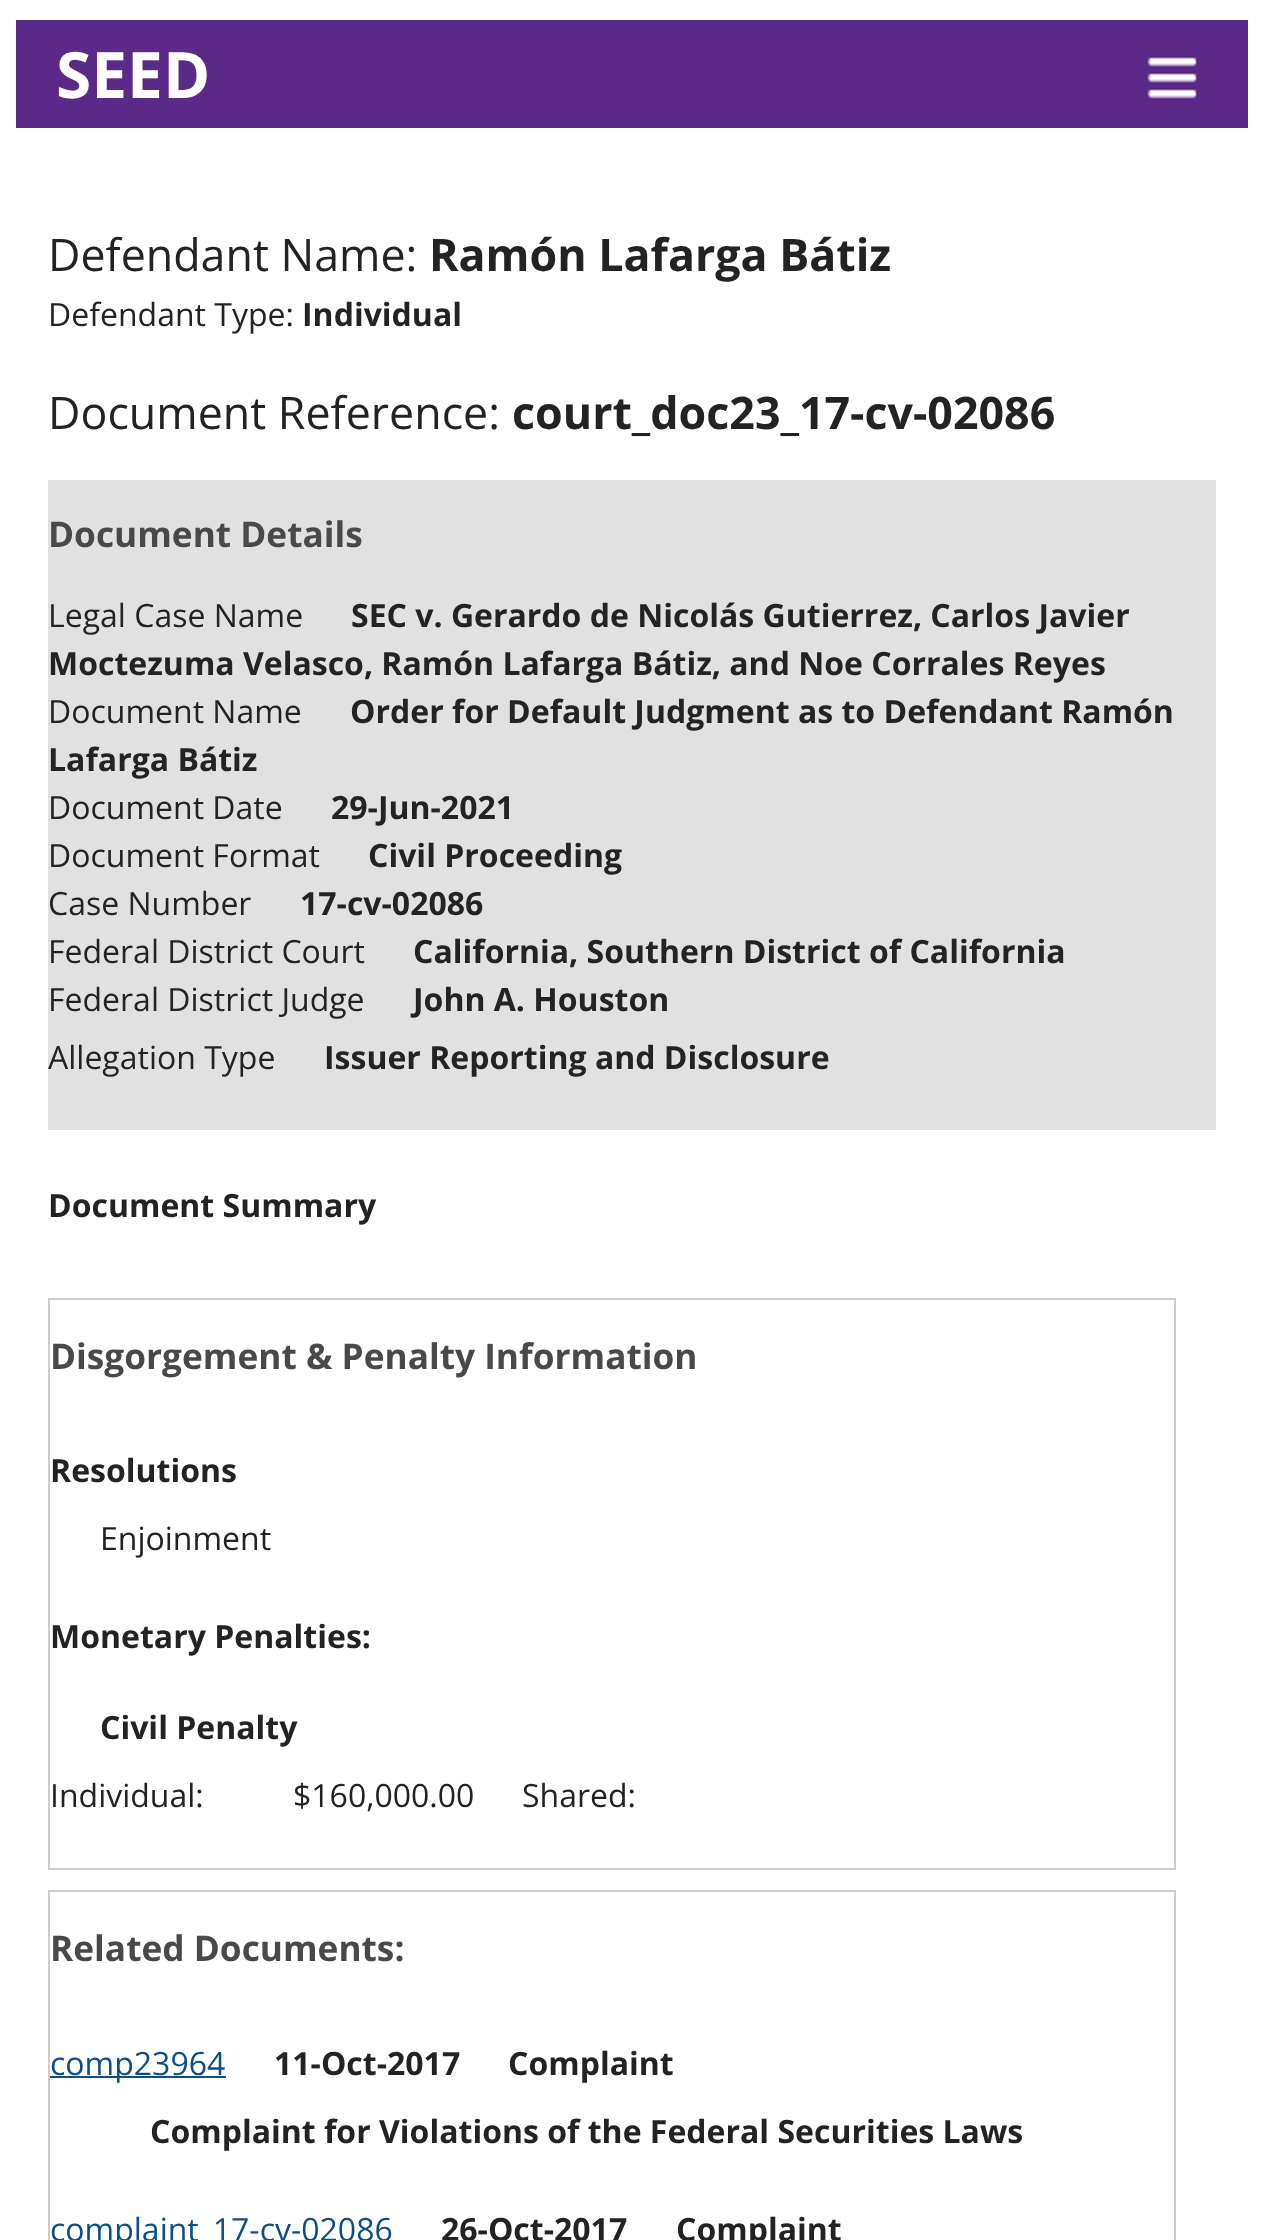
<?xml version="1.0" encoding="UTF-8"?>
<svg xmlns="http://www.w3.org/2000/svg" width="1263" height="2240">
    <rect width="100%" height="100%" fill="#FFFFFF"/>
    <rect x="16" y="20" width="1232" height="108" fill="#5B2988"/>
    <text x="56" y="98" font-family="Open Sans" font-size="64" font-weight="700" fill="#FFFFFF">SEED</text>
    <image x="1146" y="56" width="52" height="44" href="img_01.png"/>
    <text x="48" y="271" font-family="Open Sans" font-size="44.75" fill="#232323">Defendant Name:</text>
    <text x="429" y="271" font-family="Open Sans" font-size="44.75" font-weight="700" fill="#232323">Ramón Lafarga Bátiz</text>
    <text x="48" y="326" font-family="Open Sans" font-size="32" fill="#232323">Defendant Type:</text>
    <text x="302" y="326" font-family="Open Sans" font-size="32" font-weight="700" fill="#232323">Individual</text>
    <text x="48" y="429" font-family="Open Sans" font-size="44.75" fill="#232323">Document Reference:</text>
    <text x="512" y="429" font-family="Open Sans" font-size="44.75" font-weight="700" fill="#232323">court_doc23_17-cv-02086</text>
    <rect x="48" y="480" width="1168" height="650" fill="#E1E1E1"/>
    <text x="48" y="547" font-family="Open Sans" font-size="35.25" font-weight="700" fill="#494949">Document Details</text>
    <text x="48" y="627" font-family="Open Sans" font-size="32" fill="#232323">Legal Case Name</text>
    <text x="351" y="627" font-family="Open Sans" font-size="32" font-weight="700" fill="#232323">SEC v. Gerardo de Nicolás Gutierrez, Carlos Javier</text>
    <text x="48" y="675" font-family="Open Sans" font-size="32" font-weight="700" fill="#232323">Moctezuma Velasco, Ramón Lafarga Bátiz, and Noe Corrales Reyes</text>
    <text x="48" y="723" font-family="Open Sans" font-size="32" fill="#232323">Document Name</text>
    <text x="350" y="723" font-family="Open Sans" font-size="32" font-weight="700" fill="#232323">Order for Default Judgment as to Defendant Ramón</text>
    <text x="48" y="771" font-family="Open Sans" font-size="32" font-weight="700" fill="#232323">Lafarga Bátiz</text>
    <text x="48" y="819" font-family="Open Sans" font-size="32" fill="#232323">Document Date</text>
    <text x="331" y="819" font-family="Open Sans" font-size="32" font-weight="700" fill="#232323">29-Jun-2021</text>
    <text x="48" y="867" font-family="Open Sans" font-size="32" fill="#232323">Document Format</text>
    <text x="368" y="867" font-family="Open Sans" font-size="32" font-weight="700" fill="#232323">Civil Proceeding</text>
    <text x="48" y="915" font-family="Open Sans" font-size="32" fill="#232323">Case Number</text>
    <text x="300" y="915" font-family="Open Sans" font-size="32" font-weight="700" fill="#232323">17-cv-02086</text>
    <text x="48" y="963" font-family="Open Sans" font-size="32" fill="#232323">Federal District Court</text>
    <text x="413" y="963" font-family="Open Sans" font-size="32" font-weight="700" fill="#232323">California, Southern District of California</text>
    <text x="48" y="1011" font-family="Open Sans" font-size="32" fill="#232323">Federal District Judge</text>
    <text x="413" y="1011" font-family="Open Sans" font-size="32" font-weight="700" fill="#232323">John A. Houston</text>
    <text x="48" y="1069" font-family="Open Sans" font-size="32" fill="#232323">Allegation Type</text>
    <text x="324" y="1069" font-family="Open Sans" font-size="32" font-weight="700" fill="#232323">Issuer Reporting and Disclosure</text>
    <text x="48" y="1217" font-family="Open Sans" font-size="32" font-weight="700" fill="#232323">Document Summary</text>
    <rect x="49" y="1299" width="1126" height="570" fill="none" stroke="#CCCCCC" stroke-width="2"/>
    <text x="50" y="1369" font-family="Open Sans" font-size="35.25" font-weight="700" fill="#494949">Disgorgement &amp; Penalty Information</text>
    <text x="50" y="1482" font-family="Open Sans" font-size="32" font-weight="700" fill="#232323">Resolutions</text>
    <text x="100" y="1550" font-family="Open Sans" font-size="32" fill="#232323">Enjoinment</text>
    <text x="50" y="1648" font-family="Open Sans" font-size="32" font-weight="700" fill="#232323">Monetary Penalties:</text>
    <text x="100" y="1739" font-family="Open Sans" font-size="32" font-weight="700" fill="#232323">Civil Penalty</text>
    <text x="50" y="1807" font-family="Open Sans" font-size="32" fill="#232323">Individual:</text>
    <text x="293" y="1807" font-family="Open Sans" font-size="32" fill="#232323">$160,000.00</text>
    <text x="522" y="1807" font-family="Open Sans" font-size="32" fill="#232323">Shared:</text>
    <rect x="49" y="1891" width="1126" height="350" fill="none" stroke="#CCCCCC" stroke-width="2"/>
    <text x="50" y="1961" font-family="Open Sans" font-size="35.25" font-weight="700" fill="#494949">Related Documents:</text>
    <rect x="50" y="2076" width="176" height="2" fill="#0D4E87"/>
    <text x="50" y="2075" font-family="Open Sans" font-size="32" fill="#0D4E87">comp23964</text>
    <text x="274" y="2075" font-family="Open Sans" font-size="32" font-weight="700" fill="#232323">11-Oct-2017</text>
    <text x="508" y="2075" font-family="Open Sans" font-size="32" font-weight="700" fill="#232323">Complaint</text>
    <text x="150" y="2143" font-family="Open Sans" font-size="32" font-weight="700" fill="#232323">Complaint for Violations of the Federal Securities Laws</text>
    <text x="50" y="2241" font-family="Open Sans" font-size="32" fill="#0D4E87">complaint_17-cv-02086</text>
    <text x="441" y="2241" font-family="Open Sans" font-size="32" font-weight="700" fill="#232323">26-Oct-2017</text>
    <text x="676" y="2241" font-family="Open Sans" font-size="32" font-weight="700" fill="#232323">Complaint</text>
</svg>
